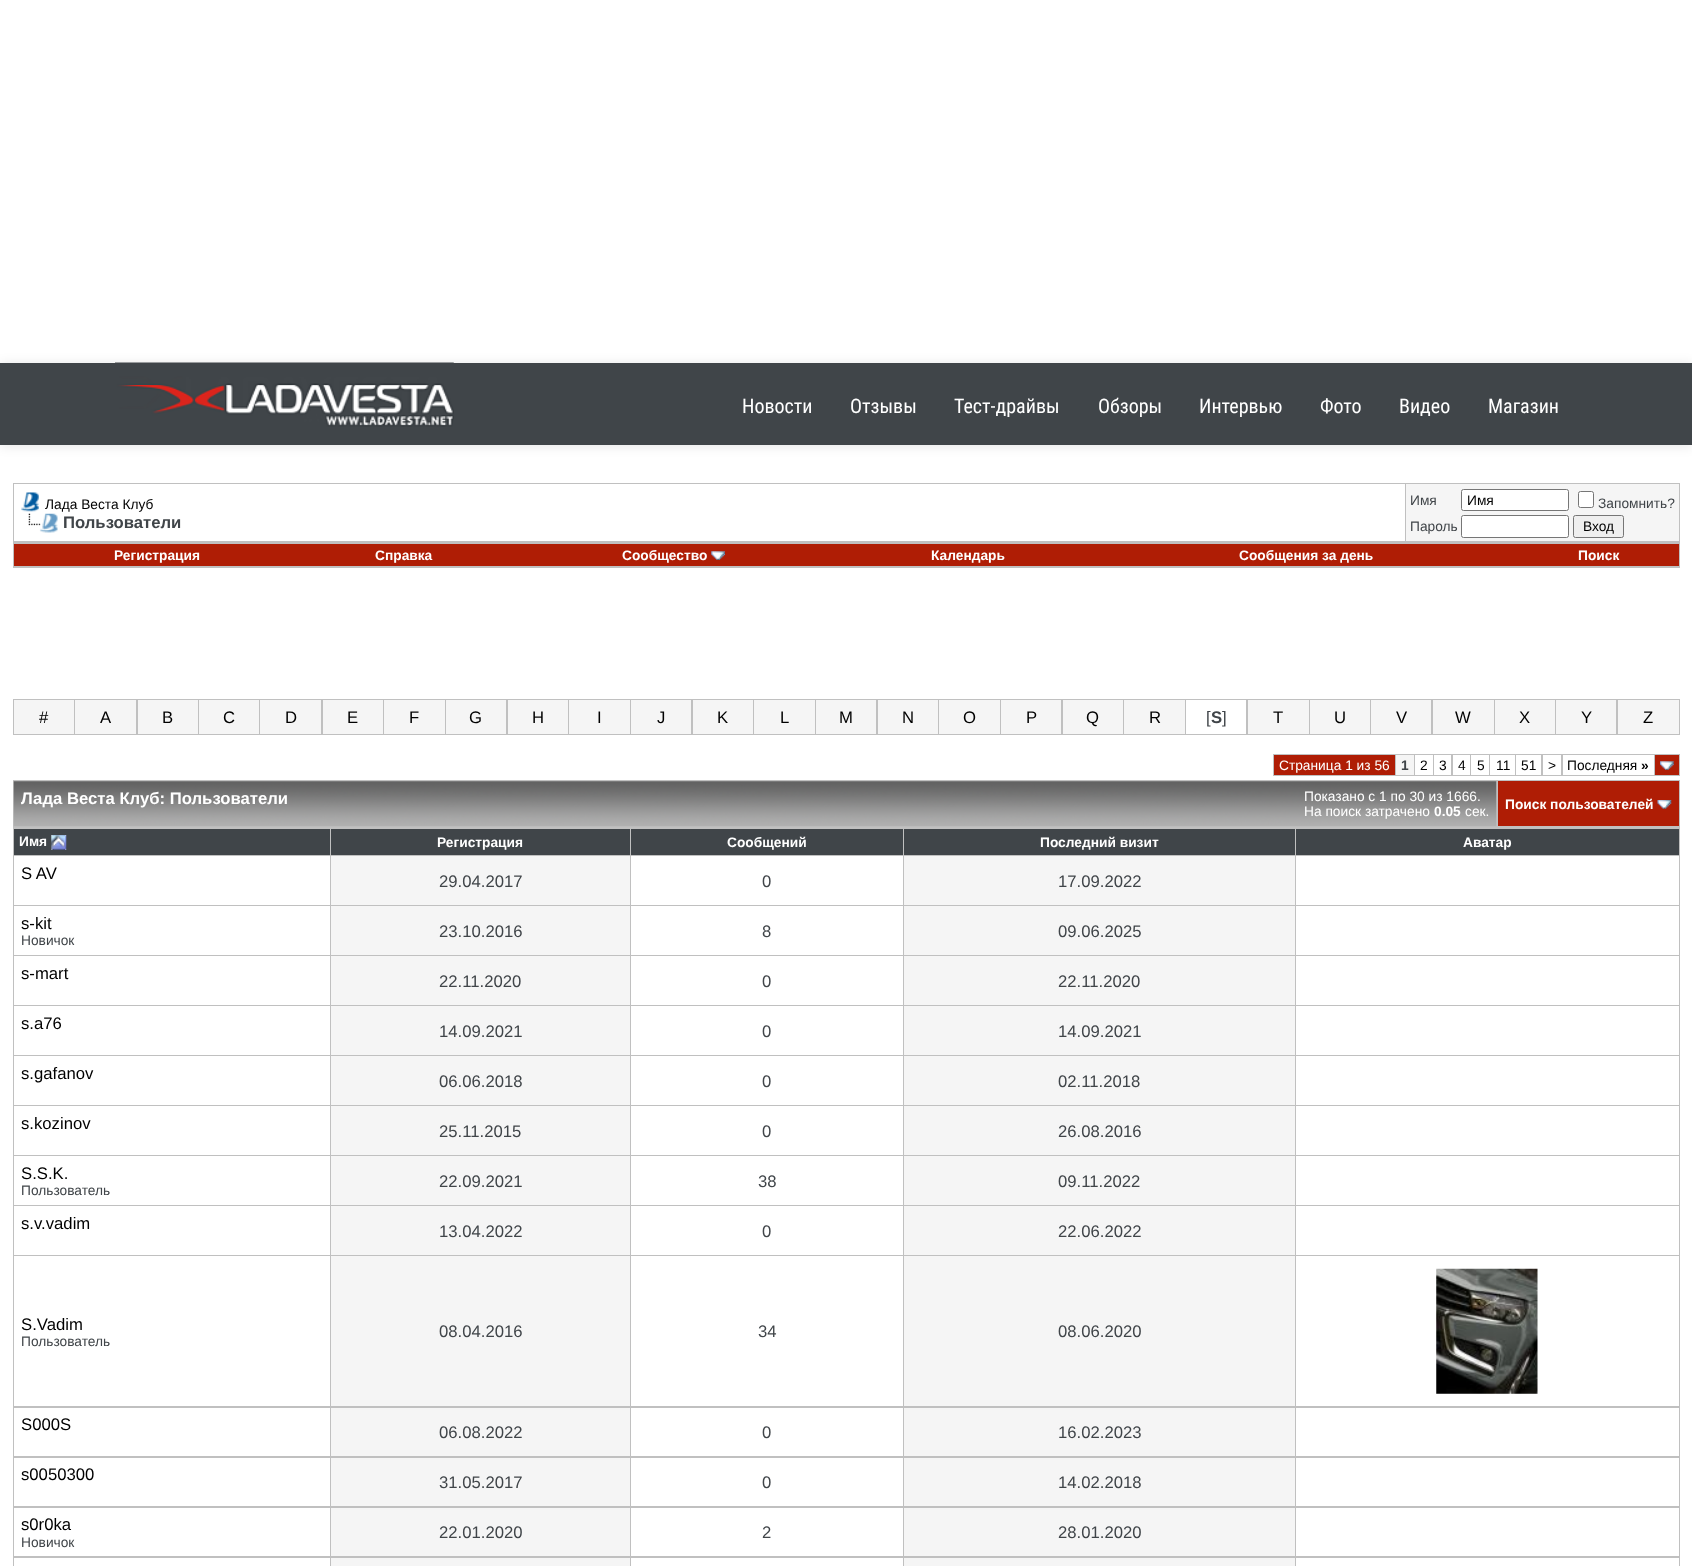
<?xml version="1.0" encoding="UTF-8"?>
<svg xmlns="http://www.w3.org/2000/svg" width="1692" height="1566">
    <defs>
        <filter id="blur1" x="-50%" y="-200%" width="200%" height="500%"><feGaussianBlur stdDeviation="6"/></filter>
    </defs>
    <rect width="100%" height="100%" fill="#FFFFFF"/>
    <rect x="0" y="364" width="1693" height="82" fill="#000000" fill-opacity="0.1" filter="url(#blur1)"/>
    <rect x="0" y="363" width="1692" height="82" fill="#404549"/>
    <image x="115" y="362" width="339" height="65" href="img_01.png"/>
    <text x="742" y="413" font-family="Roboto Condensed" font-size="20" fill="#FFFFFF">Новости</text>
    <text x="850" y="413" font-family="Roboto Condensed" font-size="20" fill="#FFFFFF">Отзывы</text>
    <text x="954" y="413" font-family="Roboto Condensed" font-size="20" fill="#FFFFFF">Тест-драйвы</text>
    <text x="1098" y="413" font-family="Roboto Condensed" font-size="20" fill="#FFFFFF">Обзоры</text>
    <text x="1199" y="413" font-family="Roboto Condensed" font-size="20" fill="#FFFFFF">Интервью</text>
    <text x="1320" y="413" font-family="Roboto Condensed" font-size="20" fill="#FFFFFF">Фото</text>
    <text x="1399" y="413" font-family="Roboto Condensed" font-size="20" fill="#FFFFFF">Видео</text>
    <text x="1488" y="413" font-family="Roboto Condensed" font-size="20" fill="#FFFFFF">Магазин</text>
    <rect x="13" y="483" width="1667" height="85" fill="#C0C0C0"/>
    <rect x="14" y="484" width="1391" height="57" fill="#FFFFFF"/>
    <image x="21" y="492" width="18" height="20" href="img_02.png"/>
    <text x="45" y="509" font-family="Liberation Sans" font-size="13.75" fill="#000000">Лада Веста Клуб</text>
    <image x="28" y="513" width="30" height="20" href="img_03.png"/>
    <text x="63" y="528" font-family="Liberation Sans" font-size="16.7" font-weight="700" fill="#404549">Пользователи</text>
    <rect x="1406" y="484" width="273" height="57" fill="#F5F5F5"/>
    <text x="1410" y="505" font-family="Liberation Sans" font-size="13.75" fill="#404549">Имя</text>
    <rect x="1461.5" y="489.5" width="107" height="21" rx="2" fill="#FFFFFF" stroke="#767676"/>
    <text x="1467" y="505" font-family="Liberation Sans" font-size="13.75" fill="#000000">Имя</text>
    <rect x="1578.5" y="491.5" width="15" height="16" rx="2" fill="#FFFFFF" stroke="#767676"/>
    <text x="1598" y="508" font-family="Liberation Sans" font-size="13.75" fill="#404549">Запомнить?</text>
    <text x="1410" y="531" font-family="Liberation Sans" font-size="13.75" fill="#404549">Пароль</text>
    <rect x="1461.5" y="515.5" width="107" height="22" rx="2" fill="#FFFFFF" stroke="#767676"/>
    <rect x="1573.5" y="515.5" width="50" height="22" rx="2" fill="#EFEFEF" stroke="#767676"/>
    <text x="1583" y="531" font-family="Liberation Sans" font-size="13.75" fill="#000000">Вход</text>
    <rect x="14" y="544" width="1665" height="22" fill="#AF1D05"/>
    <text x="114" y="560" font-family="Liberation Sans" font-size="13.75" font-weight="700" fill="#FFFFFF">Регистрация</text>
    <text x="375" y="560" font-family="Liberation Sans" font-size="13.75" font-weight="700" fill="#FFFFFF">Справка</text>
    <text x="622" y="560" font-family="Liberation Sans" font-size="13.75" font-weight="700" fill="#FFFFFF">Сообщество</text>
    <image x="711" y="551" width="14" height="9" href="img_04.png"/>
    <text x="931" y="560" font-family="Liberation Sans" font-size="13.75" font-weight="700" fill="#FFFFFF">Календарь</text>
    <text x="1239" y="560" font-family="Liberation Sans" font-size="13.75" font-weight="700" fill="#FFFFFF">Сообщения за день</text>
    <text x="1578" y="560" font-family="Liberation Sans" font-size="13.75" font-weight="700" fill="#FFFFFF">Поиск</text>
    <rect x="13" y="699" width="1667" height="36" fill="#C0C0C0"/>
    <rect x="14" y="700" width="60" height="34" fill="#F5F5F5"/>
    <text x="39" y="723" font-family="Liberation Sans" font-size="16.7" fill="#000000">#</text>
    <rect x="75" y="700" width="61" height="34" fill="#F5F5F5"/>
    <text x="100" y="723" font-family="Liberation Sans" font-size="16.7" fill="#000000">A</text>
    <rect x="138" y="700" width="60" height="34" fill="#F5F5F5"/>
    <text x="162" y="723" font-family="Liberation Sans" font-size="16.7" fill="#000000">B</text>
    <rect x="199" y="700" width="60" height="34" fill="#F5F5F5"/>
    <text x="223" y="723" font-family="Liberation Sans" font-size="16.7" fill="#000000">C</text>
    <rect x="260" y="700" width="61" height="34" fill="#F5F5F5"/>
    <text x="285" y="723" font-family="Liberation Sans" font-size="16.7" fill="#000000">D</text>
    <rect x="323" y="700" width="60" height="34" fill="#F5F5F5"/>
    <text x="347" y="723" font-family="Liberation Sans" font-size="16.7" fill="#000000">E</text>
    <rect x="384" y="700" width="61" height="34" fill="#F5F5F5"/>
    <text x="409" y="723" font-family="Liberation Sans" font-size="16.7" fill="#000000">F</text>
    <rect x="446" y="700" width="60" height="34" fill="#F5F5F5"/>
    <text x="469" y="723" font-family="Liberation Sans" font-size="16.7" fill="#000000">G</text>
    <rect x="508" y="700" width="60" height="34" fill="#F5F5F5"/>
    <text x="532" y="723" font-family="Liberation Sans" font-size="16.7" fill="#000000">H</text>
    <rect x="569" y="700" width="61" height="34" fill="#F5F5F5"/>
    <text x="597" y="723" font-family="Liberation Sans" font-size="16.7" fill="#000000">I</text>
    <rect x="631" y="700" width="60" height="34" fill="#F5F5F5"/>
    <text x="657" y="723" font-family="Liberation Sans" font-size="16.7" fill="#000000">J</text>
    <rect x="693" y="700" width="60" height="34" fill="#F5F5F5"/>
    <text x="717" y="723" font-family="Liberation Sans" font-size="16.7" fill="#000000">K</text>
    <rect x="754" y="700" width="61" height="34" fill="#F5F5F5"/>
    <text x="780" y="723" font-family="Liberation Sans" font-size="16.7" fill="#000000">L</text>
    <rect x="816" y="700" width="60" height="34" fill="#F5F5F5"/>
    <text x="839" y="723" font-family="Liberation Sans" font-size="16.7" fill="#000000">M</text>
    <rect x="878" y="700" width="60" height="34" fill="#F5F5F5"/>
    <text x="902" y="723" font-family="Liberation Sans" font-size="16.7" fill="#000000">N</text>
    <rect x="939" y="700" width="61" height="34" fill="#F5F5F5"/>
    <text x="963" y="723" font-family="Liberation Sans" font-size="16.7" fill="#000000">O</text>
    <rect x="1001" y="700" width="60" height="34" fill="#F5F5F5"/>
    <text x="1026" y="723" font-family="Liberation Sans" font-size="16.7" fill="#000000">P</text>
    <rect x="1063" y="700" width="60" height="34" fill="#F5F5F5"/>
    <text x="1086" y="723" font-family="Liberation Sans" font-size="16.7" fill="#000000">Q</text>
    <rect x="1124" y="700" width="61" height="34" fill="#F5F5F5"/>
    <text x="1149" y="723" font-family="Liberation Sans" font-size="16.7" fill="#000000">R</text>
    <rect x="1186" y="700" width="60" height="34" fill="#FFFFFF"/>
    <text x="1206" y="723" font-family="Liberation Sans" font-size="16.7" fill="#404549">[</text>
    <text x="1211" y="723" font-family="Liberation Sans" font-size="16.7" font-weight="700" fill="#404549">S</text>
    <text x="1222" y="723" font-family="Liberation Sans" font-size="16.7" fill="#404549">]</text>
    <rect x="1248" y="700" width="61" height="34" fill="#F5F5F5"/>
    <text x="1273" y="723" font-family="Liberation Sans" font-size="16.7" fill="#000000">T</text>
    <rect x="1310" y="700" width="60" height="34" fill="#F5F5F5"/>
    <text x="1334" y="723" font-family="Liberation Sans" font-size="16.7" fill="#000000">U</text>
    <rect x="1371" y="700" width="60" height="34" fill="#F5F5F5"/>
    <text x="1396" y="723" font-family="Liberation Sans" font-size="16.7" fill="#000000">V</text>
    <rect x="1433" y="700" width="61" height="34" fill="#F5F5F5"/>
    <text x="1455" y="723" font-family="Liberation Sans" font-size="16.7" fill="#000000">W</text>
    <rect x="1495" y="700" width="60" height="34" fill="#F5F5F5"/>
    <text x="1519" y="723" font-family="Liberation Sans" font-size="16.7" fill="#000000">X</text>
    <rect x="1556" y="700" width="60" height="34" fill="#F5F5F5"/>
    <text x="1581" y="723" font-family="Liberation Sans" font-size="16.7" fill="#000000">Y</text>
    <rect x="1618" y="700" width="61" height="34" fill="#F5F5F5"/>
    <text x="1643" y="723" font-family="Liberation Sans" font-size="16.7" fill="#000000">Z</text>
    <rect x="1273" y="754" width="407" height="22" fill="#C0C0C0"/>
    <rect x="1274" y="755" width="121" height="20" fill="#AF1D05"/>
    <text x="1279" y="770" font-family="Liberation Sans" font-size="13.75" fill="#FFFFFF">Страница 1 из 56</text>
    <rect x="1396" y="755" width="18" height="20" fill="#F5F5F5"/>
    <text x="1401" y="770" font-family="Liberation Sans" font-size="13.75" font-weight="700" fill="#404549">1</text>
    <rect x="1415" y="755" width="18" height="20" fill="#FFFFFF"/>
    <text x="1420" y="770" font-family="Liberation Sans" font-size="13.75" fill="#000000">2</text>
    <rect x="1434" y="755" width="17" height="20" fill="#FFFFFF"/>
    <text x="1439" y="770" font-family="Liberation Sans" font-size="13.75" fill="#000000">3</text>
    <rect x="1453" y="755" width="17" height="20" fill="#FFFFFF"/>
    <text x="1458" y="770" font-family="Liberation Sans" font-size="13.75" fill="#000000">4</text>
    <rect x="1471" y="755" width="18" height="20" fill="#FFFFFF"/>
    <text x="1477" y="770" font-family="Liberation Sans" font-size="13.75" fill="#000000">5</text>
    <rect x="1490" y="755" width="25" height="20" fill="#FFFFFF"/>
    <text x="1496" y="770" font-family="Liberation Sans" font-size="13.75" fill="#000000">11</text>
    <rect x="1516" y="755" width="25" height="20" fill="#FFFFFF"/>
    <text x="1521" y="770" font-family="Liberation Sans" font-size="13.75" fill="#000000">51</text>
    <rect x="1543" y="755" width="18" height="20" fill="#FFFFFF"/>
    <text x="1548" y="770" font-family="Liberation Sans" font-size="13.75" fill="#000000">&gt;</text>
    <rect x="1563" y="755" width="91" height="20" fill="#FFFFFF"/>
    <text x="1567" y="770" font-family="Liberation Sans" font-size="13.75" fill="#000000">Последняя</text>
    <text x="1641" y="770" font-family="Liberation Sans" font-size="13.75" font-weight="700" fill="#000000">»</text>
    <rect x="1655" y="755" width="24" height="20" fill="#AF1D05"/>
    <image x="1660" y="761" width="14" height="9" href="img_05.png"/>
    <rect x="13" y="780" width="1667" height="786" fill="#C0C0C0"/>
    <image x="13" y="781" width="1484" height="46" href="img_06.png"/>
    <text x="21" y="804" font-family="Liberation Sans" font-size="16.7" font-weight="700" fill="#FFFFFF">Лада Веста Клуб: Пользователи</text>
    <text font-family="Liberation Sans" font-size="13.75" fill="#FFFFFF">
        <tspan x="1304" y="801">Показано с 1 по 30 из 1666.</tspan>
        <tspan x="1304" y="816">На поиск затрачено</tspan>
    </text>
    <text x="1434" y="816" font-family="Liberation Sans" font-size="13.75" font-weight="700" fill="#FFFFFF">0.05</text>
    <text x="1465" y="816" font-family="Liberation Sans" font-size="13.75" fill="#FFFFFF">сек.</text>
    <rect x="1498" y="781" width="181" height="45" fill="#AF1D05"/>
    <text x="1505" y="809" font-family="Liberation Sans" font-size="13.75" font-weight="700" fill="#FFFFFF">Поиск пользователей</text>
    <image x="1657" y="800" width="15" height="9" href="img_07.png"/>
    <rect x="14" y="829" width="316" height="26" fill="#404549"/>
    <text x="19" y="846" font-family="Liberation Sans" font-size="13.75" font-weight="700" fill="#FFFFFF">Имя</text>
    <image x="51" y="835" width="16" height="15" href="img_08.png"/>
    <rect x="331" y="829" width="299" height="26" fill="#404549"/>
    <text x="437" y="847" font-family="Liberation Sans" font-size="13.75" font-weight="700" fill="#FFFFFF">Регистрация</text>
    <rect x="631" y="829" width="272" height="26" fill="#404549"/>
    <text x="727" y="847" font-family="Liberation Sans" font-size="13.75" font-weight="700" fill="#FFFFFF">Сообщений</text>
    <rect x="904" y="829" width="391" height="26" fill="#404549"/>
    <text x="1040" y="847" font-family="Liberation Sans" font-size="13.75" font-weight="700" fill="#FFFFFF">Последний визит</text>
    <rect x="1296" y="829" width="383" height="26" fill="#404549"/>
    <text x="1463" y="847" font-family="Liberation Sans" font-size="13.75" font-weight="700" fill="#FFFFFF">Аватар</text>
    <rect x="14" y="856" width="316" height="49" fill="#FFFFFF"/>
    <text x="21" y="879" font-family="Liberation Sans" font-size="16.7" fill="#000000">S AV</text>
    <rect x="1296" y="856" width="383" height="49" fill="#FFFFFF"/>
    <rect x="331" y="856" width="299" height="49" fill="#F5F5F5"/>
    <text x="439" y="887" font-family="Liberation Sans" font-size="16.7" fill="#404549">29.04.2017</text>
    <rect x="631" y="856" width="272" height="49" fill="#FFFFFF"/>
    <text x="762" y="887" font-family="Liberation Sans" font-size="16.7" fill="#404549">0</text>
    <rect x="904" y="856" width="391" height="49" fill="#F5F5F5"/>
    <text x="1058" y="887" font-family="Liberation Sans" font-size="16.7" fill="#404549">17.09.2022</text>
    <rect x="14" y="906" width="316" height="49" fill="#FFFFFF"/>
    <text x="21" y="929" font-family="Liberation Sans" font-size="16.7" fill="#000000">s-kit</text>
    <text x="21" y="945" font-family="Liberation Sans" font-size="13.75" fill="#404549">Новичок</text>
    <rect x="331" y="906" width="299" height="49" fill="#F5F5F5"/>
    <text x="439" y="937" font-family="Liberation Sans" font-size="16.7" fill="#404549">23.10.2016</text>
    <rect x="631" y="906" width="272" height="49" fill="#FFFFFF"/>
    <text x="762" y="937" font-family="Liberation Sans" font-size="16.7" fill="#404549">8</text>
    <rect x="904" y="906" width="391" height="49" fill="#F5F5F5"/>
    <text x="1058" y="937" font-family="Liberation Sans" font-size="16.7" fill="#404549">09.06.2025</text>
    <rect x="1296" y="906" width="383" height="49" fill="#FFFFFF"/>
    <rect x="14" y="956" width="316" height="49" fill="#FFFFFF"/>
    <text x="21" y="979" font-family="Liberation Sans" font-size="16.7" fill="#000000">s-mart</text>
    <rect x="331" y="956" width="299" height="49" fill="#F5F5F5"/>
    <text x="439" y="987" font-family="Liberation Sans" font-size="16.7" fill="#404549">22.11.2020</text>
    <rect x="631" y="956" width="272" height="49" fill="#FFFFFF"/>
    <text x="762" y="987" font-family="Liberation Sans" font-size="16.7" fill="#404549">0</text>
    <rect x="904" y="956" width="391" height="49" fill="#F5F5F5"/>
    <text x="1058" y="987" font-family="Liberation Sans" font-size="16.7" fill="#404549">22.11.2020</text>
    <rect x="1296" y="956" width="383" height="49" fill="#FFFFFF"/>
    <rect x="14" y="1006" width="316" height="49" fill="#FFFFFF"/>
    <text x="21" y="1029" font-family="Liberation Sans" font-size="16.7" fill="#000000">s.a76</text>
    <rect x="1296" y="1006" width="383" height="49" fill="#FFFFFF"/>
    <rect x="331" y="1006" width="299" height="49" fill="#F5F5F5"/>
    <text x="439" y="1037" font-family="Liberation Sans" font-size="16.7" fill="#404549">14.09.2021</text>
    <rect x="631" y="1006" width="272" height="49" fill="#FFFFFF"/>
    <text x="762" y="1037" font-family="Liberation Sans" font-size="16.7" fill="#404549">0</text>
    <rect x="904" y="1006" width="391" height="49" fill="#F5F5F5"/>
    <text x="1058" y="1037" font-family="Liberation Sans" font-size="16.7" fill="#404549">14.09.2021</text>
    <rect x="14" y="1056" width="316" height="49" fill="#FFFFFF"/>
    <text x="21" y="1079" font-family="Liberation Sans" font-size="16.7" fill="#000000">s.gafanov</text>
    <rect x="331" y="1056" width="299" height="49" fill="#F5F5F5"/>
    <text x="439" y="1087" font-family="Liberation Sans" font-size="16.7" fill="#404549">06.06.2018</text>
    <rect x="631" y="1056" width="272" height="49" fill="#FFFFFF"/>
    <text x="762" y="1087" font-family="Liberation Sans" font-size="16.7" fill="#404549">0</text>
    <rect x="904" y="1056" width="391" height="49" fill="#F5F5F5"/>
    <text x="1058" y="1087" font-family="Liberation Sans" font-size="16.7" fill="#404549">02.11.2018</text>
    <rect x="1296" y="1056" width="383" height="49" fill="#FFFFFF"/>
    <rect x="14" y="1106" width="316" height="49" fill="#FFFFFF"/>
    <text x="21" y="1129" font-family="Liberation Sans" font-size="16.7" fill="#000000">s.kozinov</text>
    <rect x="1296" y="1106" width="383" height="49" fill="#FFFFFF"/>
    <rect x="331" y="1106" width="299" height="49" fill="#F5F5F5"/>
    <text x="439" y="1137" font-family="Liberation Sans" font-size="16.7" fill="#404549">25.11.2015</text>
    <rect x="631" y="1106" width="272" height="49" fill="#FFFFFF"/>
    <text x="762" y="1137" font-family="Liberation Sans" font-size="16.7" fill="#404549">0</text>
    <rect x="904" y="1106" width="391" height="49" fill="#F5F5F5"/>
    <text x="1058" y="1137" font-family="Liberation Sans" font-size="16.7" fill="#404549">26.08.2016</text>
    <rect x="14" y="1156" width="316" height="49" fill="#FFFFFF"/>
    <text x="21" y="1179" font-family="Liberation Sans" font-size="16.7" fill="#000000">S.S.K.</text>
    <text x="21" y="1195" font-family="Liberation Sans" font-size="13.75" fill="#404549">Пользователь</text>
    <rect x="331" y="1156" width="299" height="49" fill="#F5F5F5"/>
    <text x="439" y="1187" font-family="Liberation Sans" font-size="16.7" fill="#404549">22.09.2021</text>
    <rect x="631" y="1156" width="272" height="49" fill="#FFFFFF"/>
    <text x="758" y="1187" font-family="Liberation Sans" font-size="16.7" fill="#404549">38</text>
    <rect x="904" y="1156" width="391" height="49" fill="#F5F5F5"/>
    <text x="1058" y="1187" font-family="Liberation Sans" font-size="16.7" fill="#404549">09.11.2022</text>
    <rect x="1296" y="1156" width="383" height="49" fill="#FFFFFF"/>
    <rect x="14" y="1206" width="316" height="49" fill="#FFFFFF"/>
    <text x="21" y="1229" font-family="Liberation Sans" font-size="16.7" fill="#000000">s.v.vadim</text>
    <rect x="1296" y="1206" width="383" height="49" fill="#FFFFFF"/>
    <rect x="331" y="1206" width="299" height="49" fill="#F5F5F5"/>
    <text x="439" y="1237" font-family="Liberation Sans" font-size="16.7" fill="#404549">13.04.2022</text>
    <rect x="631" y="1206" width="272" height="49" fill="#FFFFFF"/>
    <text x="762" y="1237" font-family="Liberation Sans" font-size="16.7" fill="#404549">0</text>
    <rect x="904" y="1206" width="391" height="49" fill="#F5F5F5"/>
    <text x="1058" y="1237" font-family="Liberation Sans" font-size="16.7" fill="#404549">22.06.2022</text>
    <rect x="14" y="1256" width="316" height="150" fill="#FFFFFF"/>
    <text x="21" y="1330" font-family="Liberation Sans" font-size="16.7" fill="#000000">S.Vadim</text>
    <text x="21" y="1346" font-family="Liberation Sans" font-size="13.75" fill="#404549">Пользователь</text>
    <rect x="331" y="1256" width="299" height="150" fill="#F5F5F5"/>
    <text x="439" y="1337" font-family="Liberation Sans" font-size="16.7" fill="#404549">08.04.2016</text>
    <rect x="631" y="1256" width="272" height="150" fill="#FFFFFF"/>
    <text x="758" y="1337" font-family="Liberation Sans" font-size="16.7" fill="#404549">34</text>
    <rect x="904" y="1256" width="391" height="150" fill="#F5F5F5"/>
    <text x="1058" y="1337" font-family="Liberation Sans" font-size="16.7" fill="#404549">08.06.2020</text>
    <rect x="1296" y="1256" width="383" height="150" fill="#FFFFFF"/>
    <image x="1436" y="1268" width="102" height="126" href="img_09.png"/>
    <rect x="14" y="1408" width="316" height="48" fill="#FFFFFF"/>
    <text x="21" y="1430" font-family="Liberation Sans" font-size="16.7" fill="#000000">S000S</text>
    <rect x="1296" y="1408" width="383" height="48" fill="#FFFFFF"/>
    <rect x="331" y="1408" width="299" height="48" fill="#F5F5F5"/>
    <text x="439" y="1438" font-family="Liberation Sans" font-size="16.7" fill="#404549">06.08.2022</text>
    <rect x="631" y="1408" width="272" height="48" fill="#FFFFFF"/>
    <text x="762" y="1438" font-family="Liberation Sans" font-size="16.7" fill="#404549">0</text>
    <rect x="904" y="1408" width="391" height="48" fill="#F5F5F5"/>
    <text x="1058" y="1438" font-family="Liberation Sans" font-size="16.7" fill="#404549">16.02.2023</text>
    <rect x="14" y="1458" width="316" height="48" fill="#FFFFFF"/>
    <text x="21" y="1480" font-family="Liberation Sans" font-size="16.7" fill="#000000">s0050300</text>
    <rect x="1296" y="1458" width="383" height="48" fill="#FFFFFF"/>
    <rect x="331" y="1458" width="299" height="48" fill="#F5F5F5"/>
    <text x="439" y="1488" font-family="Liberation Sans" font-size="16.7" fill="#404549">31.05.2017</text>
    <rect x="631" y="1458" width="272" height="48" fill="#FFFFFF"/>
    <text x="762" y="1488" font-family="Liberation Sans" font-size="16.7" fill="#404549">0</text>
    <rect x="904" y="1458" width="391" height="48" fill="#F5F5F5"/>
    <text x="1058" y="1488" font-family="Liberation Sans" font-size="16.7" fill="#404549">14.02.2018</text>
    <rect x="14" y="1508" width="316" height="48" fill="#FFFFFF"/>
    <text x="21" y="1530" font-family="Liberation Sans" font-size="16.7" fill="#000000">s0r0ka</text>
    <text x="21" y="1547" font-family="Liberation Sans" font-size="13.75" fill="#404549">Новичок</text>
    <rect x="331" y="1508" width="299" height="48" fill="#F5F5F5"/>
    <text x="439" y="1538" font-family="Liberation Sans" font-size="16.7" fill="#404549">22.01.2020</text>
    <rect x="631" y="1508" width="272" height="48" fill="#FFFFFF"/>
    <text x="762" y="1538" font-family="Liberation Sans" font-size="16.7" fill="#404549">2</text>
    <rect x="904" y="1508" width="391" height="48" fill="#F5F5F5"/>
    <text x="1058" y="1538" font-family="Liberation Sans" font-size="16.7" fill="#404549">28.01.2020</text>
    <rect x="1296" y="1508" width="383" height="48" fill="#FFFFFF"/>
    <rect x="14" y="1558" width="316" height="8" fill="#FFFFFF"/>
    <rect x="331" y="1558" width="299" height="8" fill="#F5F5F5"/>
    <rect x="631" y="1558" width="272" height="8" fill="#FFFFFF"/>
    <rect x="904" y="1558" width="391" height="8" fill="#F5F5F5"/>
    <rect x="1296" y="1558" width="383" height="8" fill="#FFFFFF"/>
</svg>
